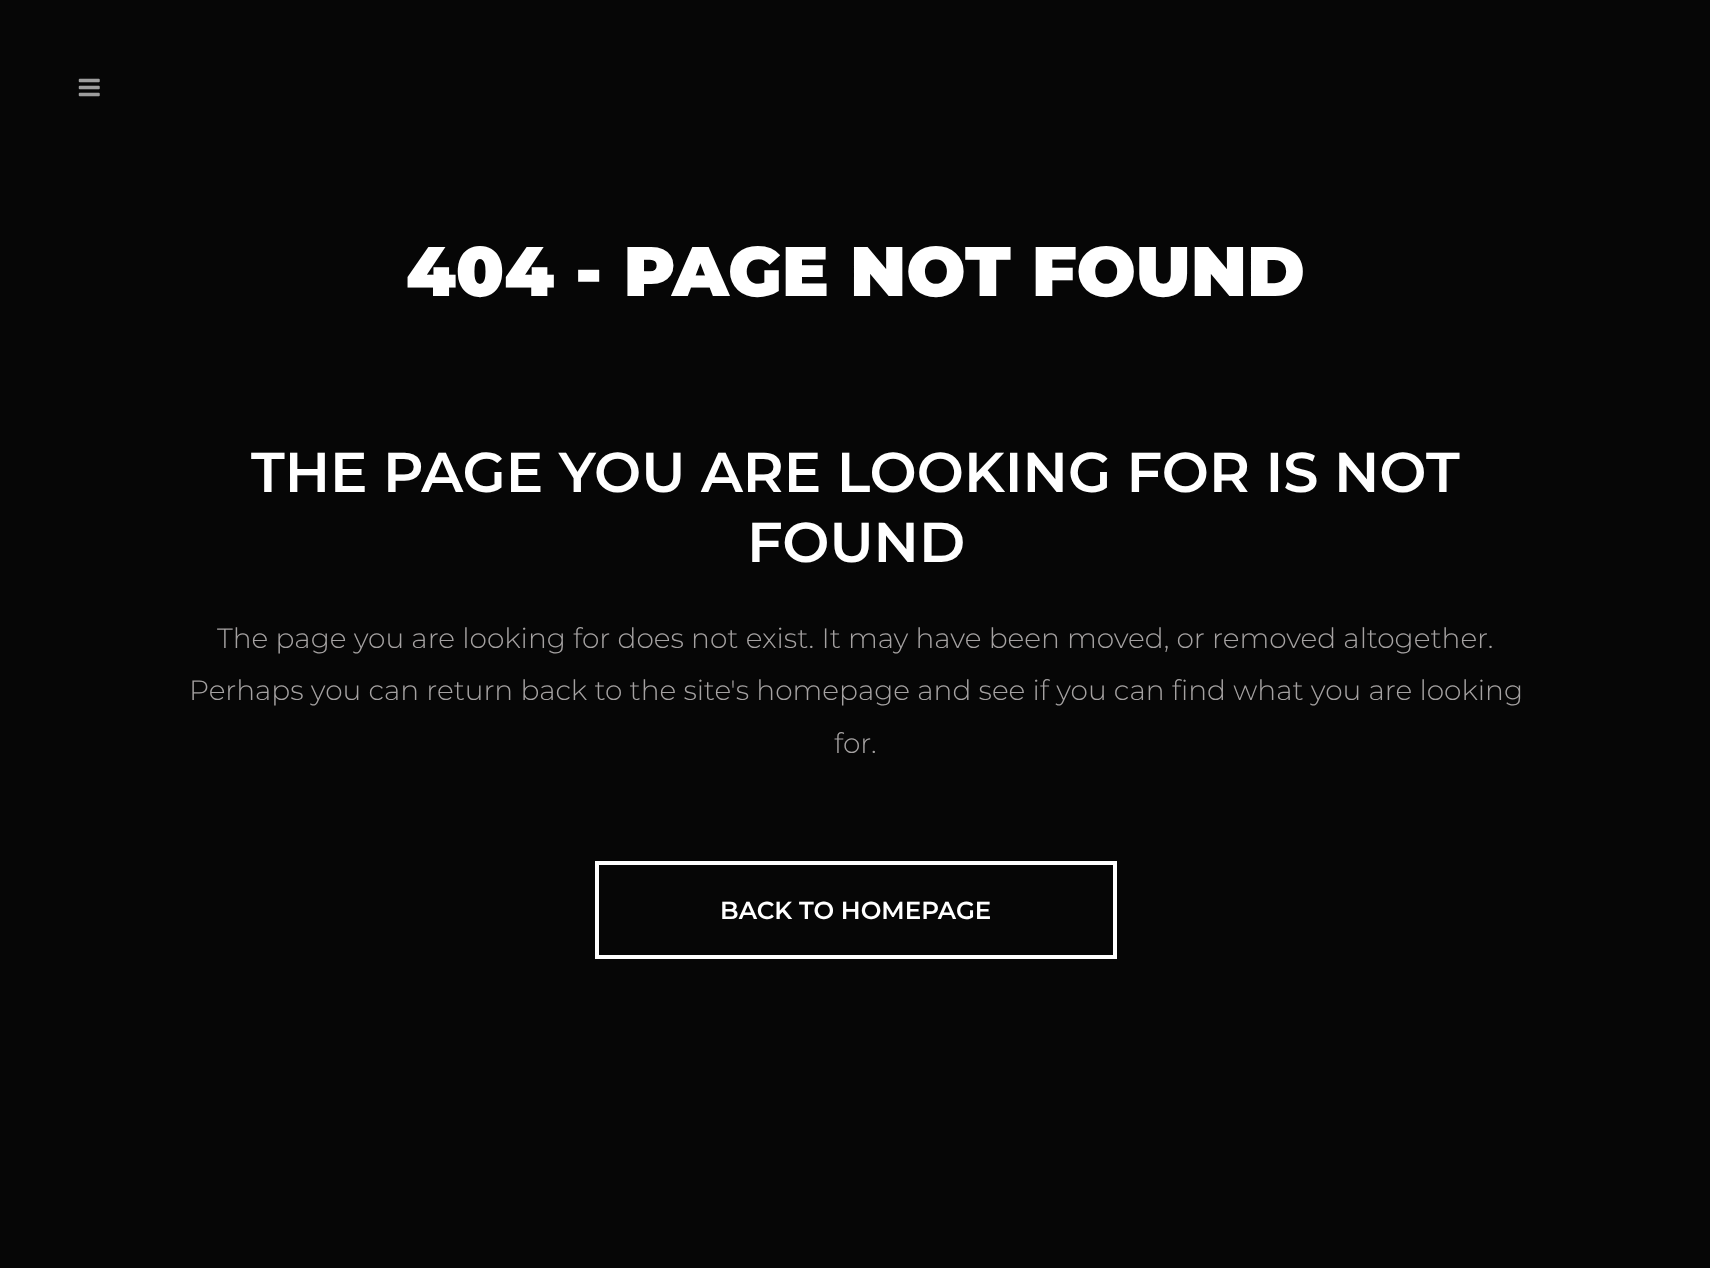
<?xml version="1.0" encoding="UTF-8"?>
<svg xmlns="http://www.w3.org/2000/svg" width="1710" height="1268">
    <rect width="100%" height="100%" fill="#060606"/>
    <image x="78" y="78" width="22" height="19" href="img_01.png"/>
    <text x="406" y="296" font-family="Montserrat" font-size="70" font-weight="900" fill="#FFFFFF">404 - PAGE NOT FOUND</text>
    <text x="251" y="492" font-family="Montserrat" font-size="56" font-weight="600" fill="#FFFFFF">THE PAGE YOU ARE LOOKING FOR IS NOT</text>
    <text x="747" y="562" font-family="Montserrat" font-size="56" font-weight="600" fill="#FFFFFF">FOUND</text>
    <text x="217" y="648" font-family="Montserrat" font-size="28" font-weight="300" fill="#A5A2A2">The page you are looking for does not exist. It may have been moved, or removed altogether.</text>
    <text x="189" y="700" font-family="Montserrat" font-size="28" font-weight="300" fill="#A5A2A2">Perhaps you can return back to the site's homepage and see if you can find what you are looking</text>
    <text x="834" y="753" font-family="Montserrat" font-size="28" font-weight="300" fill="#A5A2A2">for.</text>
    <rect x="597" y="863" width="518" height="94" fill="none" stroke="#FFFFFF" stroke-width="4"/>
    <text x="720" y="919" font-family="Montserrat" font-size="24.5" font-weight="600" fill="#FFFFFF">BACK TO HOMEPAGE</text>
</svg>
